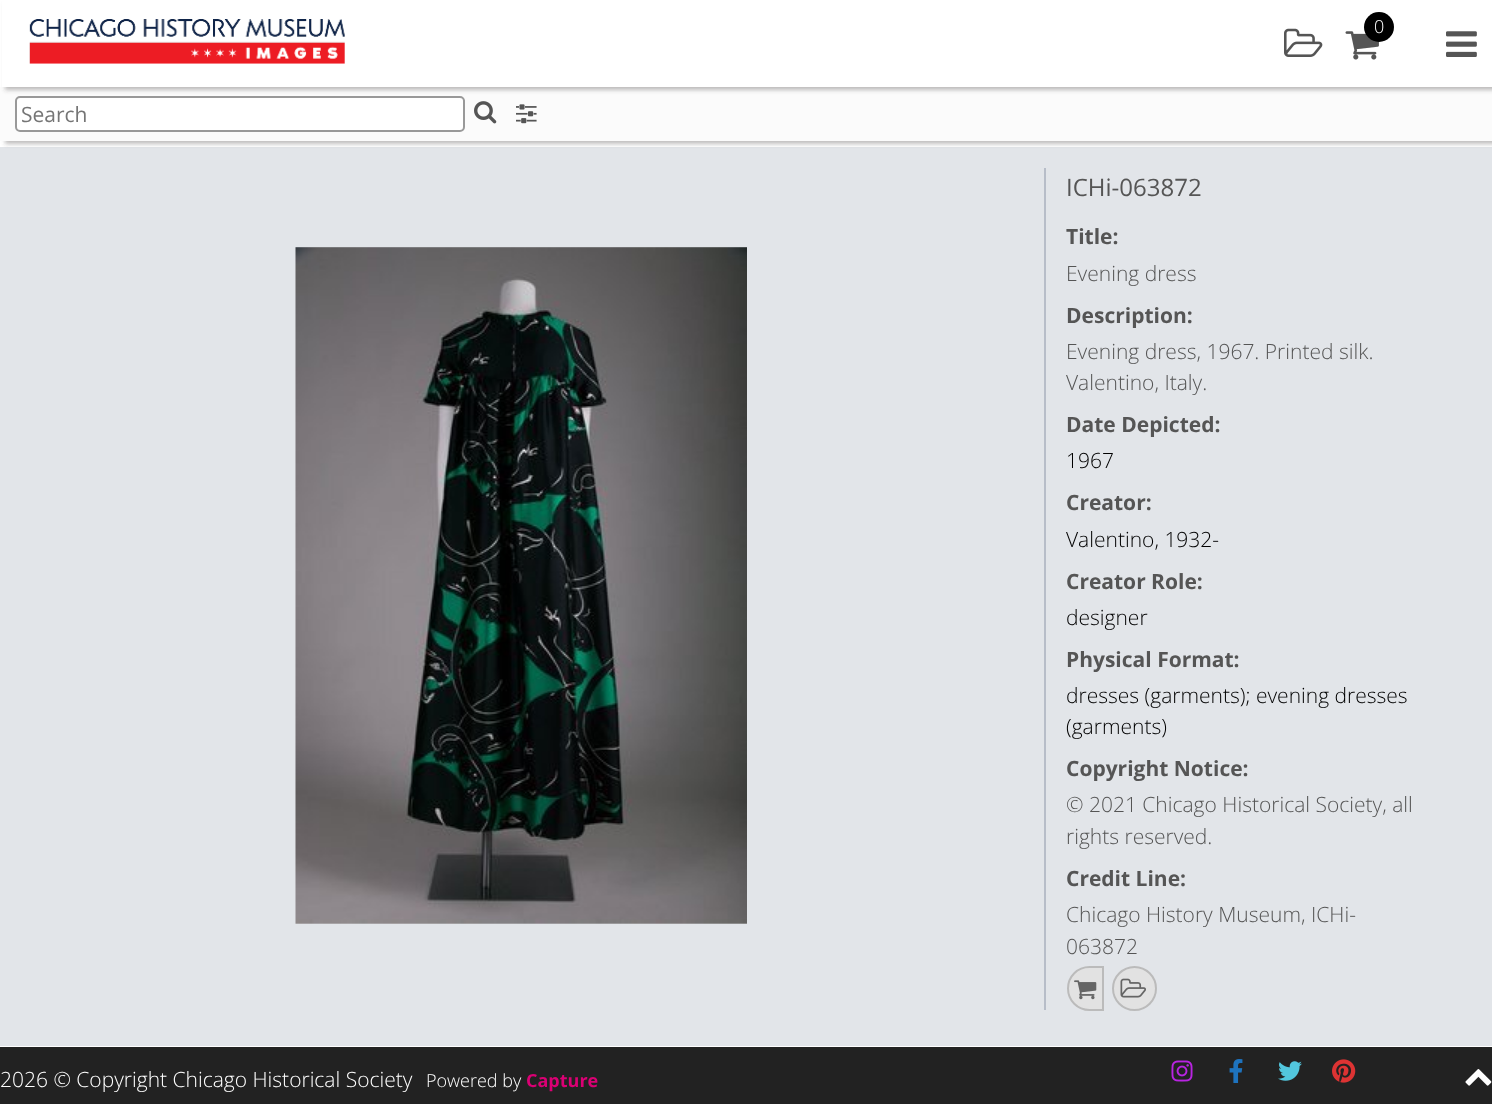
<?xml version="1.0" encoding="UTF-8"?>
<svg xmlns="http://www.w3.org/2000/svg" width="1492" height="1104">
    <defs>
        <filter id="blur1" x="-50%" y="-200%" width="200%" height="500%"><feGaussianBlur stdDeviation="2"/></filter>
    </defs>
    <rect width="100%" height="100%" fill="#FFFFFF"/>
    <rect x="0" y="147" width="1492" height="899" fill="#E2E5E9"/>
    <rect x="5" y="90" width="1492" height="54" fill="#4A4545" fill-opacity="0.35" filter="url(#blur1)"/>
    <rect x="0" y="87" width="1492" height="54" fill="#FBFBFB"/>
    <rect x="16" y="97" width="448" height="34" rx="4" fill="#FFFFFF" stroke="#999999" stroke-width="2"/>
    <rect x="5" y="3" width="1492" height="87" fill="#4A4545" fill-opacity="0.35" filter="url(#blur1)"/>
    <rect x="2" y="0" width="1490" height="87" fill="#FFFFFF"/>
    <image x="29" y="19" width="316" height="45" href="img_01.png"/>
    <image x="1345" y="31" width="34" height="29" href="img_02.png"/>
    <circle cx="1379" cy="27" r="15" fill="#000000"/>
    <text x="1374" y="33" font-family="Open Sans" font-size="18" font-weight="300" fill="#FFFFFF">0</text>
    <image x="1284" y="28" width="39" height="29" href="img_03.png"/>
    <image x="1446" y="31" width="31" height="26" href="img_04.png"/>
    <text x="21" y="122" font-family="Open Sans" font-size="21" fill="#757575">Search</text>
    <image x="474" y="101" width="23" height="23" href="img_05.png"/>
    <image x="516" y="104" width="21" height="20" href="img_06.png"/>
    <rect x="1044" y="168" width="2" height="842" fill="#B7BDC8"/>
    <image x="295" y="247" width="452" height="677" href="img_07.png"/>
    <text x="1066" y="196" font-family="Open Sans" font-size="24" fill="#555555">ICHi-063872</text>
    <text x="1066" y="244" font-family="Open Sans" font-size="21" font-weight="700" fill="#555555">Title:</text>
    <text x="1066" y="281" font-family="Open Sans" font-size="21" font-weight="300" fill="#555555">Evening dress</text>
    <text x="1066" y="323" font-family="Open Sans" font-size="21" font-weight="700" fill="#555555">Description:</text>
    <text font-family="Open Sans" font-size="21" font-weight="300" fill="#555555">
        <tspan x="1066" y="359">Evening dress, 1967. Printed silk.</tspan>
        <tspan x="1066" y="390">Valentino, Italy.</tspan>
    </text>
    <text x="1066" y="432" font-family="Open Sans" font-size="21" font-weight="700" fill="#555555">Date Depicted:</text>
    <text x="1066" y="468" font-family="Open Sans" font-size="21" font-weight="300" fill="#000000">1967</text>
    <text x="1066" y="510" font-family="Open Sans" font-size="21" font-weight="700" fill="#555555">Creator:</text>
    <text x="1066" y="547" font-family="Open Sans" font-size="21" font-weight="300" fill="#000000">Valentino, 1932-</text>
    <text x="1066" y="589" font-family="Open Sans" font-size="21" font-weight="700" fill="#555555">Creator Role:</text>
    <text x="1066" y="625" font-family="Open Sans" font-size="21" font-weight="300" fill="#000000">designer</text>
    <text x="1066" y="667" font-family="Open Sans" font-size="21" font-weight="700" fill="#555555">Physical Format:</text>
    <text font-family="Open Sans" font-size="21" font-weight="300" fill="#000000">
        <tspan x="1066" y="703">dresses (garments); evening dresses</tspan>
        <tspan x="1066" y="734">(garments)</tspan>
    </text>
    <text x="1066" y="776" font-family="Open Sans" font-size="21" font-weight="700" fill="#555555">Copyright Notice:</text>
    <text font-family="Open Sans" font-size="21" font-weight="300" fill="#555555">
        <tspan x="1066" y="812">© 2021 Chicago Historical Society, all</tspan>
        <tspan x="1066" y="844">rights reserved.</tspan>
    </text>
    <text x="1066" y="886" font-family="Open Sans" font-size="21" font-weight="700" fill="#555555">Credit Line:</text>
    <text font-family="Open Sans" font-size="21" font-weight="300" fill="#555555">
        <tspan x="1066" y="922">Chicago History Museum, ICHi-</tspan>
        <tspan x="1066" y="954">063872</tspan>
    </text>
    <path d="M 1089.5 967 H 1103 V 1010 H 1089.5 C 1077.5 1010 1068 1000.5 1068 988.5 C 1068 976.5 1077.5 967 1089.5 967 Z" fill="#E2E2E2" stroke="#BBBBBB" stroke-width="2"/>
    <image x="1074" y="980" width="23" height="20" href="img_08.png"/>
    <circle cx="1134.5" cy="988.5" r="21.5" fill="#E2E2E2" stroke="#BBBBBB" stroke-width="2"/>
    <image x="1120" y="978" width="26" height="20" href="img_09.png"/>
    <rect x="0" y="1047" width="1492" height="57" fill="#222222"/>
    <text x="0" y="1087" font-family="Open Sans" font-size="21" font-weight="300" fill="#FFFFFF">2026 © Copyright Chicago Historical Society</text>
    <text x="426" y="1087" font-family="Open Sans" font-size="18" font-weight="300" fill="#FFFFFF">Powered by</text>
    <text x="526" y="1087" font-family="Open Sans" font-size="18" font-weight="700" fill="#DB0074">Capture</text>
    <image x="1171" y="1060" width="22" height="22" href="img_10.png"/>
    <image x="1229" y="1059" width="14" height="24" href="img_11.png"/>
    <image x="1278" y="1061" width="24" height="20" href="img_12.png"/>
    <image x="1332" y="1059" width="24" height="24" href="img_13.png"/>
    <image x="1465" y="1069" width="27" height="17" href="img_14.png"/>
</svg>
